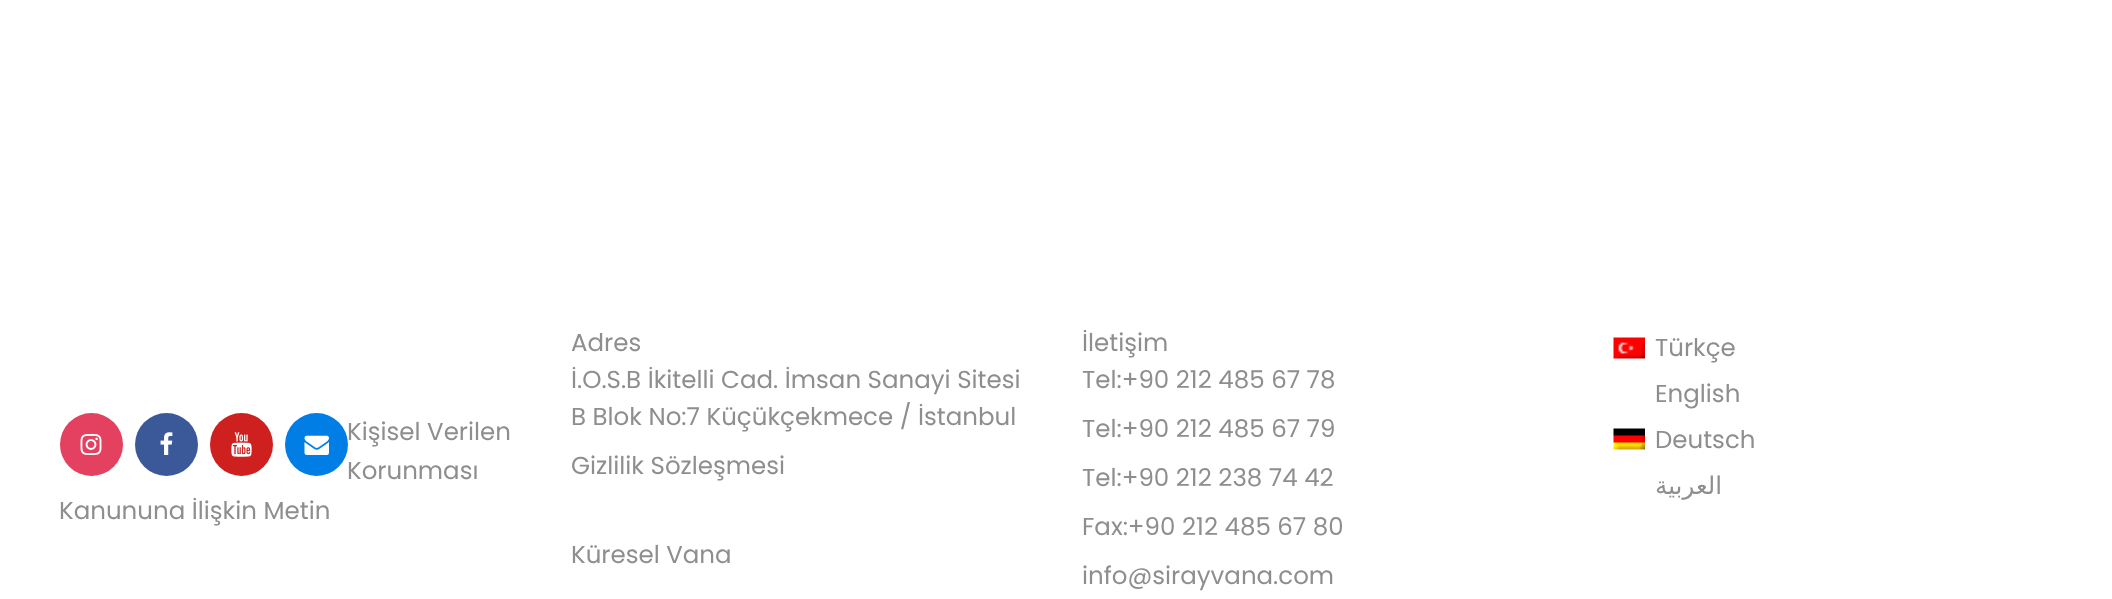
<?xml version="1.0" encoding="UTF-8"?>
<svg xmlns="http://www.w3.org/2000/svg" width="2112" height="599">
    <rect width="100%" height="100%" fill="#FFFFFF"/>
    <circle cx="91.5" cy="444.5" r="31.5" fill="#E4405F"/>
    <image x="80" y="434" width="22" height="21" href="img_01.png"/>
    <circle cx="166.5" cy="444.5" r="31.5" fill="#3B5999"/>
    <image x="160" y="432" width="13" height="23" href="img_02.png"/>
    <circle cx="241.5" cy="444.5" r="31.5" fill="#CD201F"/>
    <image x="231" y="432" width="21" height="25" href="img_03.png"/>
    <circle cx="316.5" cy="444.5" r="31.5" fill="#007EE5"/>
    <image x="304" y="435" width="25" height="20" href="img_04.png"/>
    <text font-family="Poppins" font-size="24.5" fill="#8E8E8E">
        <tspan x="347" y="440">Kişisel Verilen</tspan>
        <tspan x="347" y="479">Korunması</tspan>
    </text>
    <text x="59" y="519" font-family="Poppins" font-size="24.5" fill="#8E8E8E">Kanununa İlişkin Metin</text>
    <text font-family="Poppins" font-size="24.5" fill="#8E8E8E">
        <tspan x="571" y="351">Adres</tspan>
        <tspan x="571" y="388">İ.O.S.B İkitelli Cad. İmsan Sanayi Sitesi</tspan>
        <tspan x="571" y="425">B Blok No:7 Küçükçekmece / İstanbul</tspan>
    </text>
    <text x="571" y="474" font-family="Poppins" font-size="24.5" fill="#8E8E8E">Gizlilik Sözleşmesi</text>
    <text x="571" y="563" font-family="Poppins" font-size="24.5" fill="#8E8E8E">Küresel Vana</text>
    <text font-family="Poppins" font-size="24.5" fill="#8E8E8E">
        <tspan x="1082" y="351">İletişim</tspan>
        <tspan x="1082" y="388">Tel:+90 212 485 67 78</tspan>
    </text>
    <text x="1082" y="437" font-family="Poppins" font-size="24.5" fill="#8E8E8E">Tel:+90 212 485 67 79</text>
    <text x="1082" y="486" font-family="Poppins" font-size="24.5" fill="#8E8E8E">Tel:+90 212 238 74 42</text>
    <text x="1082" y="535" font-family="Poppins" font-size="24.5" fill="#8E8E8E">Fax:+90 212 485 67 80</text>
    <text x="1082" y="584" font-family="Poppins" font-size="24.5" fill="#8E8E8E">info@sirayvana.com</text>
    <image x="1613" y="337" width="32" height="22" href="img_05.png"/>
    <text font-family="Poppins" font-size="24.5" fill="#8E8E8E">
        <tspan x="1655" y="356">Türkçe</tspan>
        <tspan x="1655" y="402">English</tspan>
    </text>
    <image x="1613" y="428" width="32" height="22" href="img_06.png"/>
    <text x="1655" y="448" font-family="Poppins" font-size="24.5" fill="#8E8E8E">Deutsch</text>
    <text x="1722" y="494" font-family="DejaVu Sans" font-size="24.5" direction="rtl" fill="#8E8E8E">العربية</text>
</svg>
